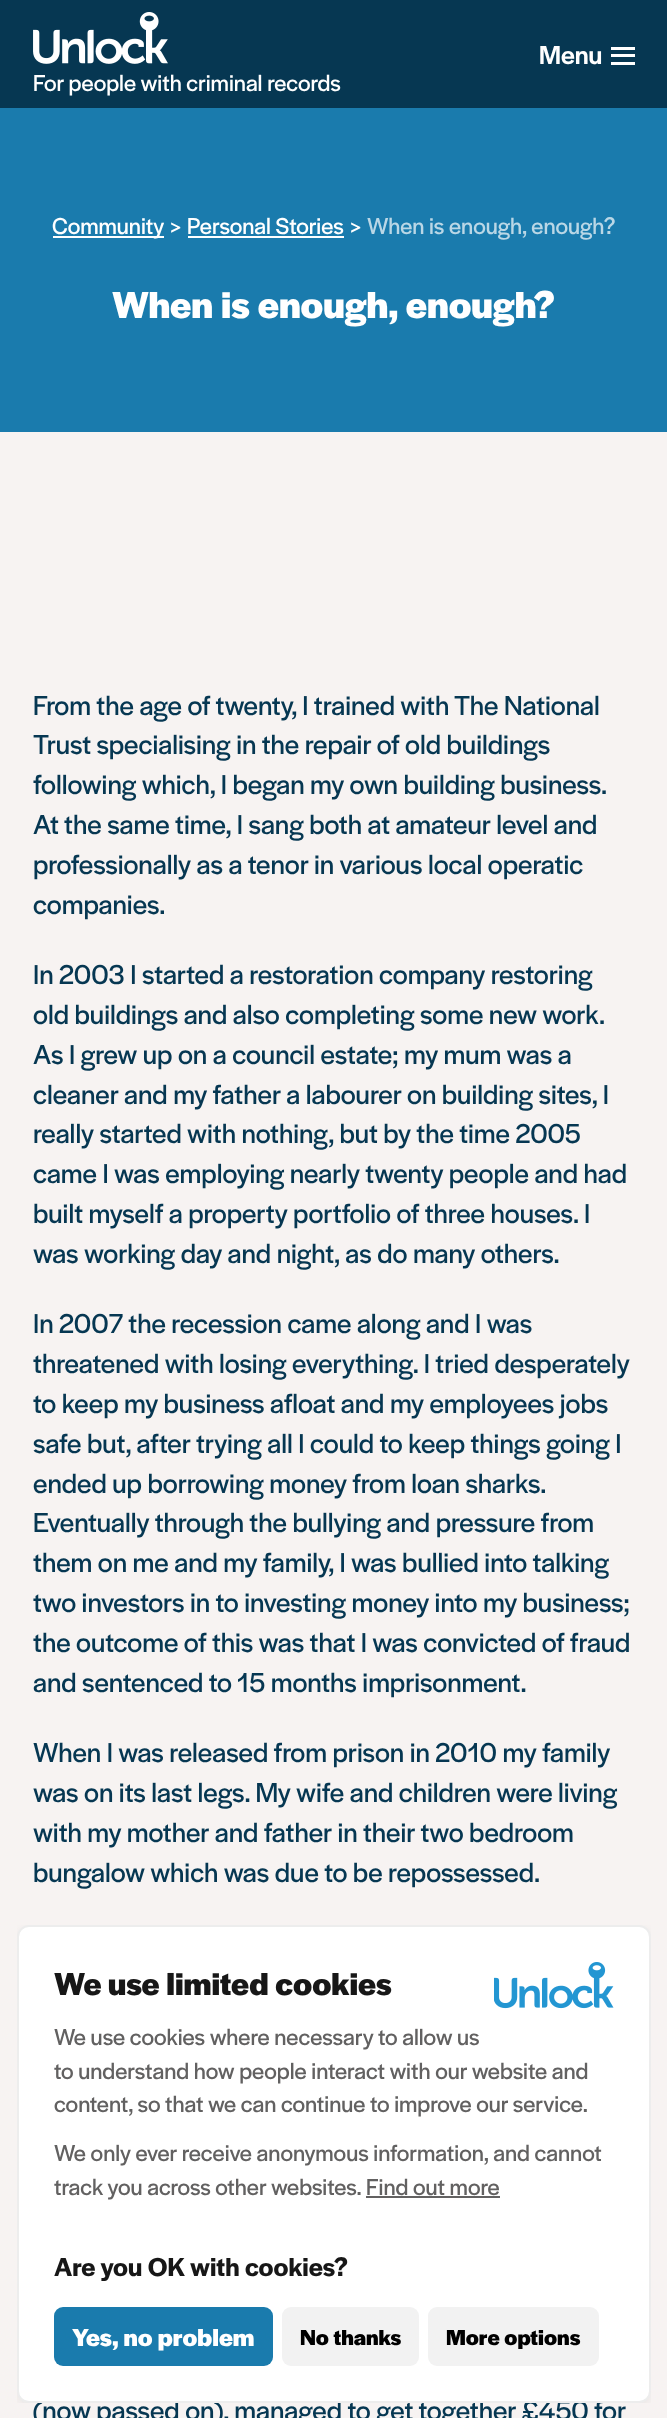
<?xml version="1.0" encoding="UTF-8"?>
<svg xmlns="http://www.w3.org/2000/svg" width="667" height="2418">
    <defs>
        <clipPath id="clip1"><rect x="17" y="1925" width="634" height="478"/></clipPath>
        <filter id="blur1" x="-50%" y="-200%" width="200%" height="500%"><feGaussianBlur stdDeviation="4.5"/></filter>
    </defs>
    <rect width="100%" height="100%" fill="#F7F3F2"/>
    <rect x="0" y="0" width="667" height="108" fill="#063752"/>
    <text x="539" y="64" font-family="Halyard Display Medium" font-size="27" font-weight="500" fill="#FFFFFF">Menu</text>
    <rect x="611" y="47" width="24" height="3" fill="#FFFFFF"/>
    <rect x="611" y="54" width="24" height="3" fill="#FFFFFF"/>
    <rect x="611" y="62" width="24" height="3" fill="#FFFFFF"/>
    <image x="33" y="12" width="135" height="52" href="img_01.png"/>
    <text x="33" y="91" font-family="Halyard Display" font-size="24" fill="#FFFFFF">For people with criminal records</text>
    <rect x="0" y="108" width="667" height="324" fill="#1A7BAD"/>
    <rect x="53" y="236" width="111" height="2" fill="#FFFFFF"/>
    <text x="52" y="234" font-family="Halyard Display" font-size="24" fill="#FFFFFF">Community</text>
    <text x="170" y="234" font-family="Halyard Display" font-size="24" fill="#FFFFFF">&gt;</text>
    <text x="187" y="234" font-family="Halyard Display" font-size="24" fill="#FFFFFF">Personal Stories</text>
    <rect x="188" y="236" width="156" height="2" fill="#FFFFFF"/>
    <text x="350" y="234" font-family="Halyard Display" font-size="24" fill="#FFFFFF">&gt;</text>
    <text x="367" y="234" font-family="Halyard Display" font-size="24" fill="#BAD7E6">When is enough, enough?</text>
    <text x="112" y="318" font-family="Halyard Display" font-size="39" font-weight="700" fill="#FFFFFF">When is enough, enough?</text>
    <text font-family="Halyard Display" font-size="28.5" fill="#063752">
        <tspan x="33" y="715">From the age of twenty, I trained with The National</tspan>
        <tspan x="33" y="754">Trust specialising in the repair of old buildings</tspan>
        <tspan x="33" y="794">following which, I began my own building business.</tspan>
        <tspan x="33" y="834">At the same time, I sang both at amateur level and</tspan>
        <tspan x="33" y="874">professionally as a tenor in various local operatic</tspan>
        <tspan x="33" y="914">companies.</tspan>
    </text>
    <text font-family="Halyard Display" font-size="28.5" fill="#063752">
        <tspan x="33" y="984">In 2003 I started a restoration company restoring</tspan>
        <tspan x="33" y="1024">old buildings and also completing some new work.</tspan>
        <tspan x="33" y="1064">As I grew up on a council estate; my mum was a</tspan>
        <tspan x="33" y="1104">cleaner and my father a labourer on building sites, I</tspan>
        <tspan x="33" y="1143">really started with nothing, but by the time 2005</tspan>
        <tspan x="33" y="1183">came I was employing nearly twenty people and had</tspan>
        <tspan x="33" y="1223">built myself a property portfolio of three houses. I</tspan>
        <tspan x="33" y="1263">was working day and night, as do many others.</tspan>
    </text>
    <text font-family="Halyard Display" font-size="28.5" fill="#063752">
        <tspan x="33" y="1333">In 2007 the recession came along and I was</tspan>
        <tspan x="33" y="1373">threatened with losing everything. I tried desperately</tspan>
        <tspan x="33" y="1413">to keep my business afloat and my employees jobs</tspan>
        <tspan x="33" y="1453">safe but, after trying all I could to keep things going I</tspan>
        <tspan x="33" y="1493">ended up borrowing money from loan sharks.</tspan>
        <tspan x="33" y="1532">Eventually through the bullying and pressure from</tspan>
        <tspan x="33" y="1572">them on me and my family, I was bullied into talking</tspan>
        <tspan x="33" y="1612">two investors in to investing money into my business;</tspan>
        <tspan x="33" y="1652">the outcome of this was that I was convicted of fraud</tspan>
        <tspan x="33" y="1692">and sentenced to 15 months imprisonment.</tspan>
    </text>
    <text font-family="Halyard Display" font-size="28.5" fill="#063752">
        <tspan x="33" y="1762">When I was released from prison in 2010 my family</tspan>
        <tspan x="33" y="1802">was on its last legs. My wife and children were living</tspan>
        <tspan x="33" y="1842">with my mother and father in their two bedroom</tspan>
        <tspan x="33" y="1882">bungalow which was due to be repossessed.</tspan>
    </text>
    <text x="33" y="2420" font-family="Halyard Display" font-size="28.5" fill="#063752">(now passed on), managed to get together £450 for</text>
    <g clip-path="url(#clip1)">
        <rect x="17" y="1928" width="634" height="478" rx="12" fill="#000000" fill-opacity="0.05" filter="url(#blur1)"/>
    </g>
    <rect x="18" y="1926" width="632" height="476" rx="11" fill="#FFFFFF" stroke="#EDEDED" stroke-width="2"/>
    <text x="54" y="1995" font-family="Halyard Display" font-size="33" font-weight="700" fill="#171717">We use limited cookies</text>
    <image x="494" y="1962" width="120" height="47" href="img_02.png"/>
    <text font-family="Halyard Display" font-size="24" fill="#626161">
        <tspan x="54" y="2045">We use cookies where necessary to allow us</tspan>
        <tspan x="54" y="2079">to understand how people interact with our website and</tspan>
        <tspan x="54" y="2112">content, so that we can continue to improve our service.</tspan>
    </text>
    <text font-family="Halyard Display" font-size="24" fill="#626161">
        <tspan x="54" y="2161">We only ever receive anonymous information, and cannot</tspan>
        <tspan x="54" y="2195">track you across other websites. Find out more</tspan>
    </text>
    <rect x="366" y="2196" width="134" height="2" fill="#626161"/>
    <text x="54" y="2276" font-family="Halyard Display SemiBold" font-size="27" font-weight="600" fill="#171717">Are you OK with cookies?</text>
    <rect x="54" y="2307" width="219" height="59" rx="9" fill="#1A7BAD"/>
    <text x="72" y="2346" font-family="Halyard Display" font-size="25.5" font-weight="700" fill="#FFFFFF">Yes, no problem</text>
    <rect x="282" y="2307" width="137" height="59" rx="9" fill="#F2F2F2"/>
    <text x="300" y="2345" font-family="Halyard Display" font-size="22.5" font-weight="700" fill="#000000">No thanks</text>
    <rect x="428" y="2307" width="171" height="59" rx="9" fill="#F2F2F2"/>
    <text x="446" y="2345" font-family="Halyard Display" font-size="22.5" font-weight="700" fill="#000000">More options</text>
</svg>
